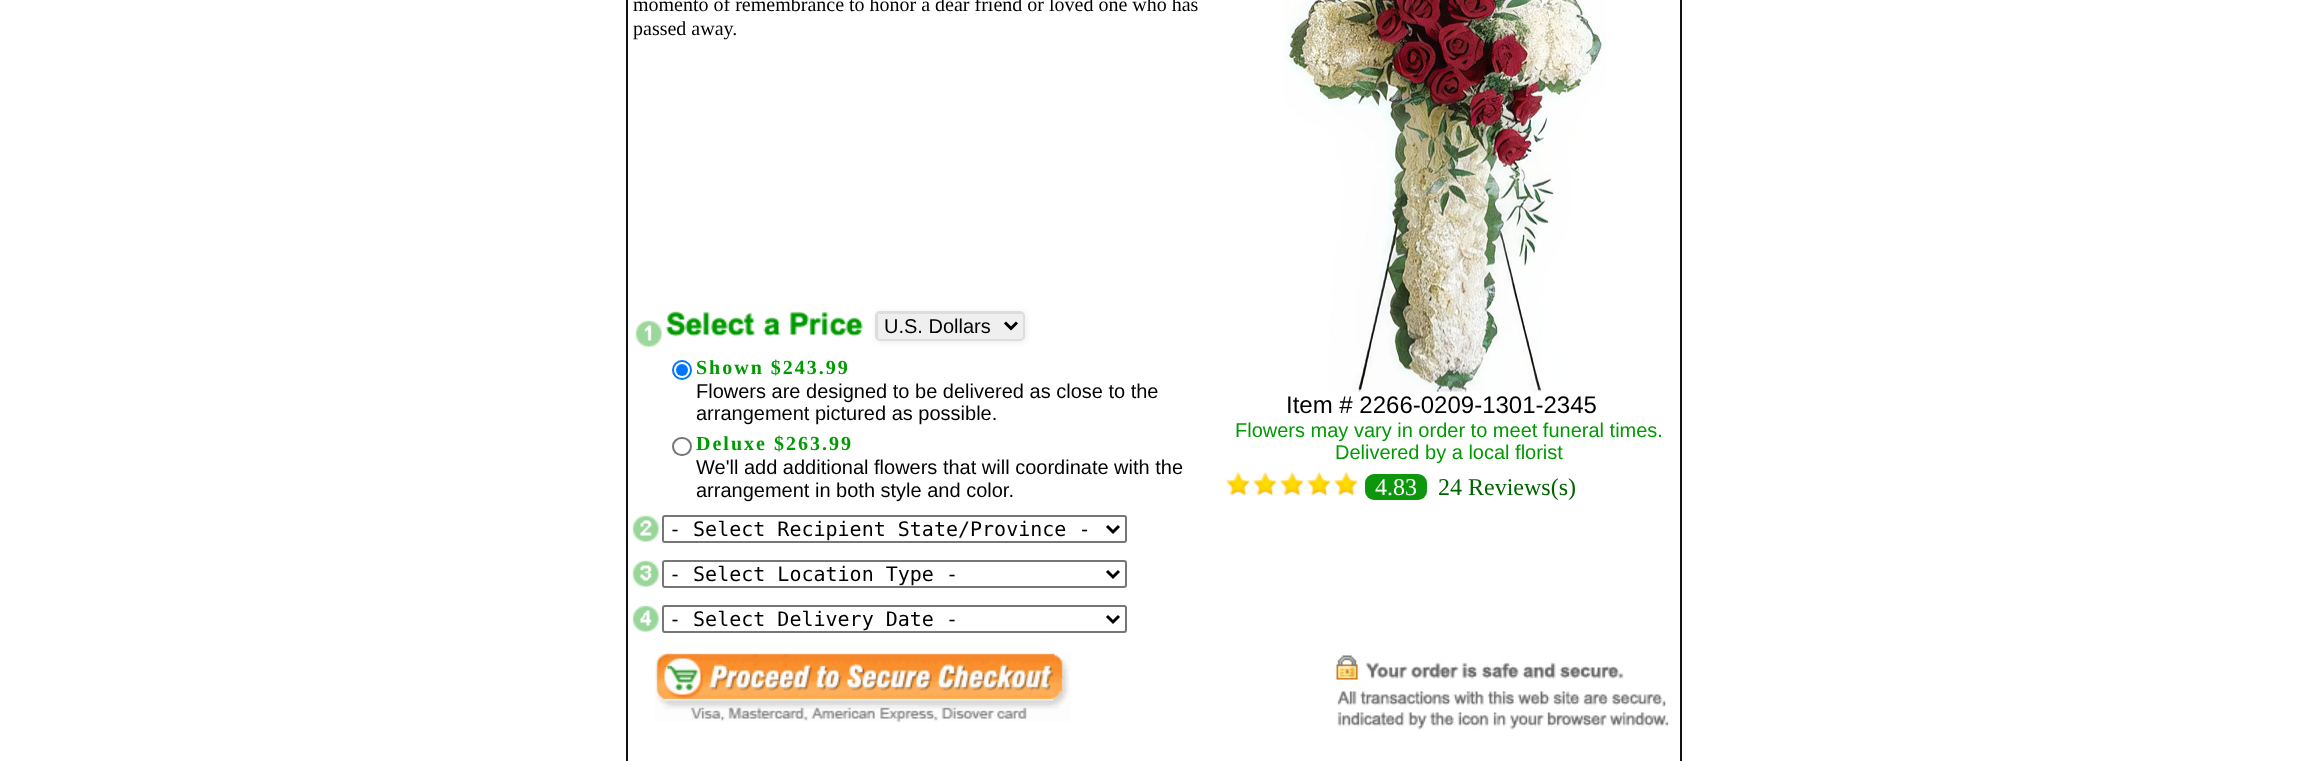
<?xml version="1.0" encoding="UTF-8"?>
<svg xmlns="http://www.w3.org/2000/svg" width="2307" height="761">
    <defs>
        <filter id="blur1" x="-50%" y="-200%" width="200%" height="500%"><feGaussianBlur stdDeviation="3"/></filter>
    </defs>
    <rect width="100%" height="100%" fill="#FFFFFF"/>
    <rect x="1680" y="0" width="2" height="761" fill="#111111"/>
    <rect x="626" y="0" width="2" height="761" fill="#111111"/>
    <text font-family="Liberation Serif" font-size="20" fill="#000000">
        <tspan x="633" y="11">momento of remembrance to honor a dear friend or loved one who has</tspan>
        <tspan x="633" y="35">passed away.</tspan>
    </text>
    <image x="1283" y="0" width="323" height="392" href="img_01.png"/>
    <text x="1286" y="413" font-family="Liberation Sans" font-size="24" fill="#000000">Item # 2266-0209-1301-2345</text>
    <text x="1235" y="437" font-family="Liberation Sans" font-size="20" fill="#029A02">Flowers may vary in order to meet funeral times.</text>
    <text x="1335" y="459" font-family="Liberation Sans" font-size="20" fill="#029A02">Delivered by a local florist</text>
    <image x="1225" y="472" width="133" height="24" href="img_02.png"/>
    <rect x="1365" y="474" width="62" height="26" rx="9" fill="#0D970C"/>
    <text x="1375" y="495" font-family="Liberation Serif" font-size="24" fill="#FFFFFF">4.83</text>
    <text x="1438" y="495" font-family="Liberation Serif" font-size="24" fill="#006500">24 Reviews(s)</text>
    <image x="635" y="320" width="27" height="27" href="img_03.png"/>
    <image x="665" y="311" width="198" height="26" href="img_04.png"/>
    <rect x="876" y="312" width="150" height="30" rx="5" fill="#EBEBEB" filter="url(#blur1)"/>
    <path d="M 879 314 H 1020 C 1022 314 1023 314 1023 315 V 336 C 1023 338 1022 339 1020 339 H 879 C 878 339 878 338 878 336 V 315 C 878 314 878 314 879 314 Z" fill="#EFEFEF"/>
    <rect x="876" y="312" width="148" height="28" rx="4" fill="none" stroke="#DDDDDD" stroke-width="2"/>
    <rect x="878" y="313" width="145" height="1" fill="#DDDDDD"/>
    <rect x="877" y="314" width="1" height="25" fill="#DDDDDD"/>
    <path d="M 1005 322.5 L 1011 328.5 L 1017 322.5" fill="none" stroke="#000000" stroke-width="3"/>
    <text x="884" y="333" font-family="Liberation Sans" font-size="20" fill="#000000">U.S. Dollars</text>
    <circle cx="682" cy="370" r="9" fill="none" stroke="#0075FF" stroke-width="2"/>
    <circle cx="682" cy="370" r="6" fill="#0075FF"/>
    <text x="696" y="374" font-family="Liberation Serif" font-size="20" font-weight="700" letter-spacing="2" fill="#029A02">Shown $243.99</text>
    <text font-family="Liberation Sans" font-size="20" fill="#000000">
        <tspan x="696" y="398">Flowers are designed to be delivered as close to the</tspan>
        <tspan x="696" y="420">arrangement pictured as possible.</tspan>
    </text>
    <rect x="673" y="438" width="18" height="17" rx="8.5" fill="none" stroke="#767676" stroke-width="2"/>
    <text x="696" y="450" font-family="Liberation Serif" font-size="20" font-weight="700" letter-spacing="2" fill="#029A02">Deluxe $263.99</text>
    <text font-family="Liberation Sans" font-size="20" fill="#000000">
        <tspan x="696" y="474">We'll add additional flowers that will coordinate with the</tspan>
        <tspan x="696" y="497">arrangement in both style and color.</tspan>
    </text>
    <image x="632" y="515" width="27" height="27" href="img_05.png"/>
    <rect x="663" y="516" width="463" height="26" rx="2" fill="none" stroke="#767676" stroke-width="2"/>
    <path d="M 1107 526 L 1113 532 L 1119 526" fill="none" stroke="#000000" stroke-width="3"/>
    <text x="669" y="536" font-family="DejaVu Sans Mono" font-size="20" fill="#000000">- Select Recipient State/Province -</text>
    <image x="632" y="560" width="27" height="27" href="img_06.png"/>
    <rect x="663" y="561" width="463" height="26" rx="2" fill="none" stroke="#767676" stroke-width="2"/>
    <path d="M 1107 571 L 1113 577 L 1119 571" fill="none" stroke="#000000" stroke-width="3"/>
    <text x="669" y="581" font-family="DejaVu Sans Mono" font-size="20" fill="#000000">- Select Location Type -</text>
    <image x="632" y="605" width="27" height="27" href="img_07.png"/>
    <rect x="663" y="606" width="463" height="26" rx="2" fill="none" stroke="#767676" stroke-width="2"/>
    <path d="M 1107 616 L 1113 622 L 1119 616" fill="none" stroke="#000000" stroke-width="3"/>
    <text x="669" y="626" font-family="DejaVu Sans Mono" font-size="20" fill="#000000">- Select Delivery Date -</text>
    <image x="655" y="653" width="415" height="69" href="img_08.png"/>
    <image x="1336" y="655" width="333" height="75" href="img_09.png"/>
</svg>
